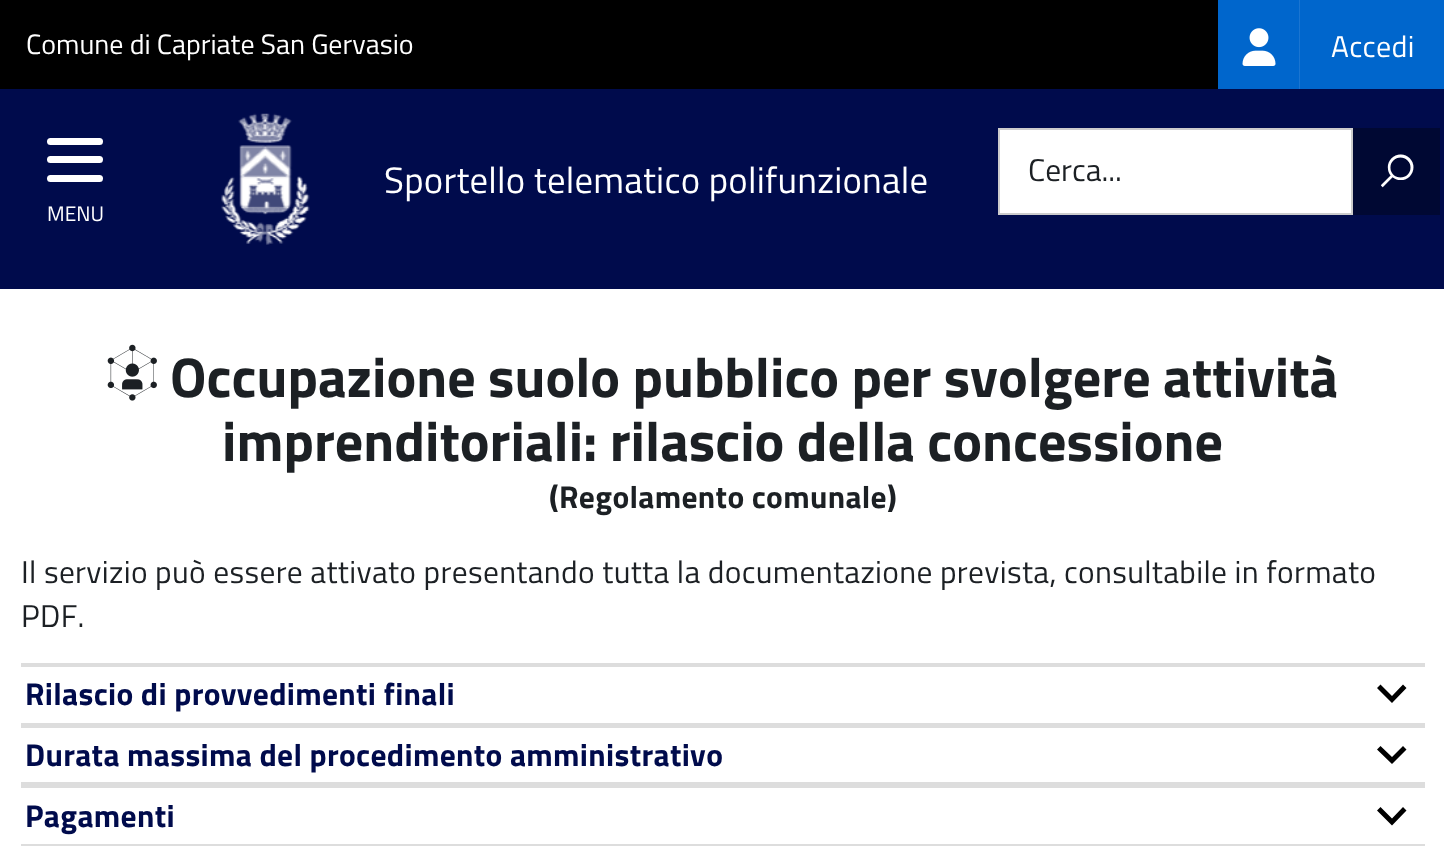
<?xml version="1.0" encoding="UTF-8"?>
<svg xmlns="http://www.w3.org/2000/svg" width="1444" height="864">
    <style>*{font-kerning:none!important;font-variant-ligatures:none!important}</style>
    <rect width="100%" height="100%" fill="#FFFFFF"/>
    <rect x="0" y="0" width="1218" height="89" fill="#000000"/>
    <text x="26" y="54" font-family="Titillium Web" font-size="28" fill="#FFFFFF">Comune di Capriate San Gervasio</text>
    <rect x="1218" y="0" width="81" height="89" fill="#0066CC"/>
    <rect x="1299" y="0" width="1" height="89" fill="#1A75D1"/>
    <image x="1242" y="28" width="34" height="38" href="img_01.png"/>
    <rect x="1300" y="0" width="144" height="89" fill="#0066CC"/>
    <text x="1331" y="57" font-family="Titillium Web" font-size="30" letter-spacing="0.32" fill="#FFFFFF">Accedi</text>
    <rect x="0" y="89" width="1444" height="200" fill="#000B4C"/>
    <image x="221" y="113" width="89" height="132" href="img_02.png"/>
    <text x="384" y="193" font-family="Titillium Web" font-size="36.75" letter-spacing="0.25" fill="#FFFFFF">Sportello telematico polifunzionale</text>
    <rect x="999" y="129" width="353" height="85" fill="#FFFFFF" stroke="#CCCCCC" stroke-width="2"/>
    <rect x="1353" y="128" width="87" height="87" fill="#000833"/>
    <text x="1381" y="185" font-family="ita" font-size="31.5" font-weight="700" fill="#FFFFFF">🔍</text>
    <text x="1028" y="181" font-family="Titillium Web" font-size="31.5" fill="#1C2024">Cerca...</text>
    <rect x="47" y="156" width="56" height="7" rx="3.5" fill="#FFFFFF"/>
    <rect x="47" y="138" width="56" height="7" rx="3.5" fill="#FFFFFF"/>
    <rect x="47" y="175" width="56" height="7" rx="3.5" fill="#FFFFFF"/>
    <text x="47" y="221" font-family="Titillium Web" font-size="21" fill="#FFFFFF">MENU</text>
    <image x="107" y="344" width="50" height="57" href="img_03.png"/>
    <text x="170" y="397" font-family="Titillium Web" font-size="56" font-weight="700" fill="#1C2024">Occupazione suolo pubblico per svolgere attività</text>
    <text x="222" y="461" font-family="Titillium Web" font-size="56" font-weight="700" fill="#1C2024">imprenditoriali: rilascio della concessione</text>
    <text x="549" y="508" font-family="Titillium Web" font-size="31.5" font-weight="700" letter-spacing="0.32" fill="#1C2024">(Regolamento comunale)</text>
    <text font-family="Titillium Web" font-size="31.5" letter-spacing="0.32" fill="#1C2024">
        <tspan x="21" y="583">Il servizio può essere attivato presentando tutta la documentazione prevista, consultabile in formato</tspan>
        <tspan x="21" y="627">PDF.</tspan>
    </text>
    <rect x="21" y="663" width="1404" height="4" fill="#DDDDDD"/>
    <rect x="21" y="723" width="1404" height="5" fill="#DDDDDD"/>
    <path d="M 1380.5 684.5 L 1377 688 L 1392 703 L 1406.5 688 L 1403 684.5 L 1392 696 Z" fill="#000000"/>
    <text x="25" y="705" font-family="Titillium Web" font-size="31.5" font-weight="700" letter-spacing="0.32" fill="#000B4C">Rilascio di provvedimenti finali</text>
    <rect x="21" y="782" width="1404" height="6" fill="#DDDDDD"/>
    <path d="M 1380.5 746 L 1377 749.5 L 1392 764 L 1406.5 749.5 L 1403 746 L 1392 757 Z" fill="#000000"/>
    <text x="25" y="766" font-family="Titillium Web" font-size="31.5" font-weight="700" letter-spacing="0.32" fill="#000B4C">Durata massima del procedimento amministrativo</text>
    <rect x="21" y="844" width="1404" height="2" fill="#DDDDDD"/>
    <path d="M 1380.5 807 L 1377 810.5 L 1392 825.5 L 1406.5 810.5 L 1403 807 L 1392 818.5 Z" fill="#000000"/>
    <text x="25" y="827" font-family="Titillium Web" font-size="31.5" font-weight="700" letter-spacing="0.32" fill="#000B4C">Pagamenti</text>
</svg>
